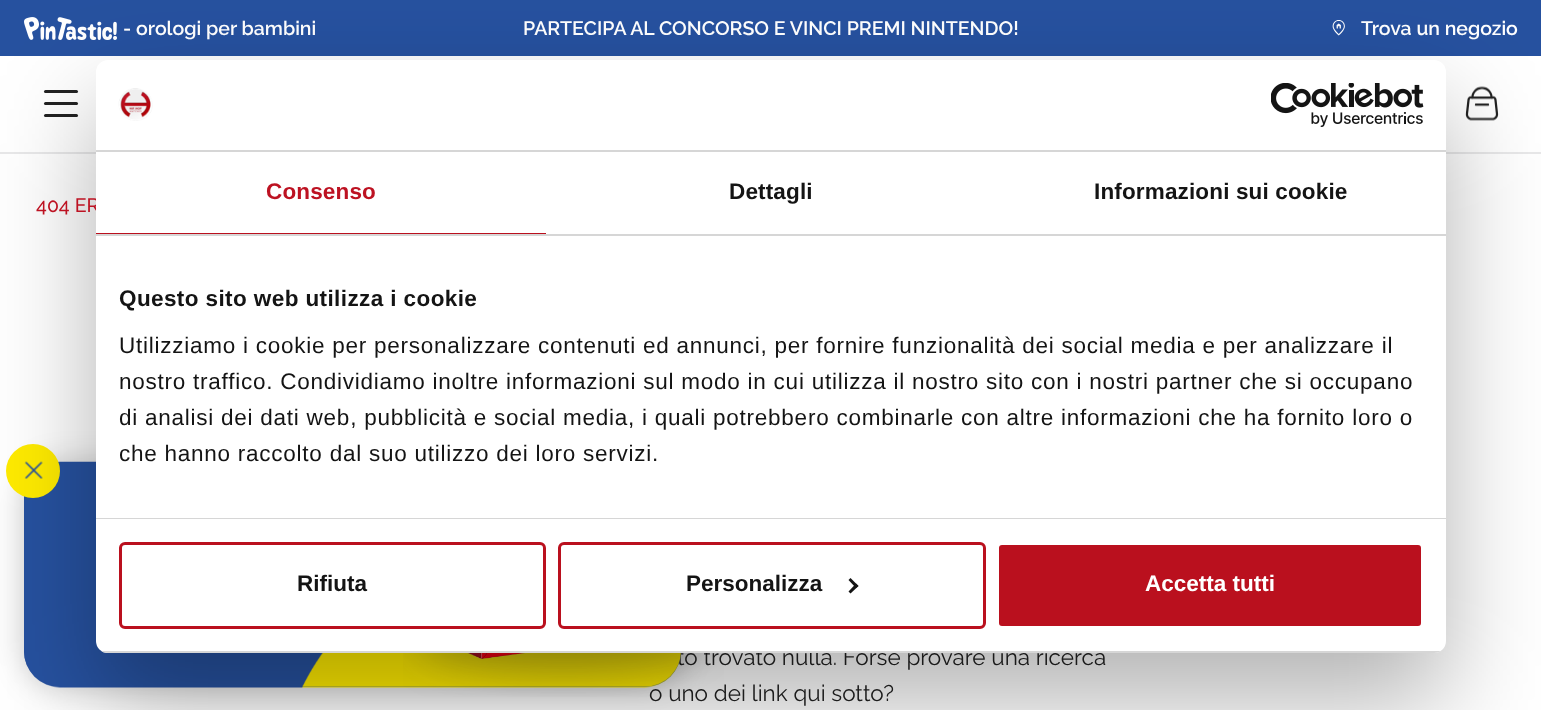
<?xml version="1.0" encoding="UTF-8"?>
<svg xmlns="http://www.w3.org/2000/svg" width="1541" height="710">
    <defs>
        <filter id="blur1" x="-50%" y="-200%" width="200%" height="500%"><feGaussianBlur stdDeviation="15"/></filter>
        <filter id="blur2" x="-50%" y="-200%" width="200%" height="500%"><feGaussianBlur stdDeviation="51"/></filter>
        <clipPath id="clip1"><rect x="96" y="60" width="1350" height="593" rx="12"/></clipPath>
    </defs>
    <rect width="100%" height="100%" fill="#FFFFFF"/>
    <rect x="0" y="0" width="1541" height="56" fill="#26519F"/>
    <image x="24" y="17" width="93" height="23" href="img_01.png"/>
    <text x="123" y="35" font-family="Raleway" font-size="19.5" font-weight="600" fill="#FFFFFF">- orologi per bambini</text>
    <text x="523" y="35" font-family="Raleway" font-size="19.5" font-weight="600" fill="#FFFFFF">PARTECIPA AL CONCORSO E VINCI PREMI NINTENDO!</text>
    <image x="1332" y="20" width="13" height="16" href="img_02.png"/>
    <text x="1361" y="35" font-family="Raleway" font-size="19.5" font-weight="600" fill="#FFFFFF">Trova un negozio</text>
    <rect x="0" y="152" width="1541" height="2" fill="#E8E8E9"/>
    <rect x="44" y="90" width="34" height="3" rx="1.5" fill="#222222"/>
    <rect x="44" y="102" width="34" height="3" rx="1.5" fill="#222222"/>
    <rect x="44" y="114" width="34" height="3" rx="1.5" fill="#222222"/>
    <image x="1465" y="86" width="34" height="35" href="img_03.png"/>
    <text x="677" y="665" font-family="Raleway" font-size="22.5" fill="#222222">to trovato nulla. Forse provare una ricerca</text>
    <text x="649" y="701" font-family="Raleway" font-size="22.5" fill="#222222">o uno dei link qui sotto?</text>
    <rect x="24" y="462" width="657" height="225" rx="36" fill="#000000" fill-opacity="0.2" filter="url(#blur1)"/>
    <rect x="24" y="462" width="657" height="225" rx="36" fill="#26519F"/>
    <image x="24" y="461" width="657" height="227" href="img_06.png"/>
    <circle cx="33" cy="471" r="27" fill="#FFEB00"/>
    <image x="24" y="461" width="19" height="18" href="img_07.png"/>
    <image x="403" y="653" width="321" height="44" href="img_08.png"/>
    <rect x="96" y="108" width="1350" height="593" rx="12" fill="#000000" fill-opacity="0.3" filter="url(#blur2)"/>
    <text x="36" y="212" font-family="Raleway" font-size="19.5" font-weight="500" fill="#BD1222">404 ER</text>
    <rect x="96" y="60" width="1350" height="593" rx="12" fill="#FFFFFF"/>
    <rect x="96" y="150" width="1350" height="2" fill="#D6D6D6"/>
    <image x="118" y="88" width="35" height="33" href="img_04.png"/>
    <image x="1271" y="83" width="153" height="44" href="img_05.png"/>
    <rect x="96" y="234" width="1350" height="2" fill="#D6D6D6"/>
    <rect x="96" y="233" width="450" height="1" fill="#BA101E"/>
    <text x="266" y="199" font-family="Liberation Sans" font-size="22.5" font-weight="700" letter-spacing="0.15" fill="#BD1222">Consenso</text>
    <text x="729" y="199" font-family="Liberation Sans" font-size="22.5" font-weight="700" letter-spacing="0.15" fill="#141414">Dettagli</text>
    <text x="1094" y="199" font-family="Liberation Sans" font-size="22.5" font-weight="700" letter-spacing="0.15" fill="#141414">Informazioni sui cookie</text>
    <rect x="96" y="518" width="1350" height="1" fill="#D6D6D6"/>
    <text x="119" y="306" font-family="Liberation Sans" font-size="22.5" font-weight="700" letter-spacing="0.4" fill="#141414">Questo sito web utilizza i cookie</text>
    <text font-family="Liberation Sans" font-size="22.5" letter-spacing="0.75" fill="#141414">
        <tspan x="119" y="353">Utilizziamo i cookie per personalizzare contenuti ed annunci, per fornire funzionalità dei social media e per analizzare il</tspan>
        <tspan x="119" y="389">nostro traffico. Condividiamo inoltre informazioni sul modo in cui utilizza il nostro sito con i nostri partner che si occupano</tspan>
        <tspan x="119" y="425">di analisi dei dati web, pubblicità e social media, i quali potrebbero combinarle con altre informazioni che ha fornito loro o</tspan>
        <tspan x="119" y="461">che hanno raccolto dal suo utilizzo dei loro servizi.</tspan>
    </text>
    <g clip-path="url(#clip1)">
        <rect x="96" y="651" width="1350" height="2" fill="#D6D6D6"/>
    </g>
    <rect x="120.5" y="543.5" width="424" height="84" rx="4.5" fill="none" stroke="#BA101E" stroke-width="3"/>
    <text x="297" y="591" font-family="Liberation Sans" font-size="22.5" font-weight="700" fill="#141414">Rifiuta</text>
    <rect x="559.5" y="543.5" width="425" height="84" rx="4.5" fill="none" stroke="#BA101E" stroke-width="3"/>
    <text x="686" y="591" font-family="Liberation Sans" font-size="22.5" font-weight="700" fill="#141414">Personalizza</text>
    <path d="M 850.5 578 L 858.5 586 L 856 588 L 848.5 580 Z" fill="#141414"/>
    <path d="M 856 583.5 L 858.5 586 L 850.5 593.5 L 848.5 591.5 Z" fill="#141414"/>
    <rect x="997.5" y="543.5" width="425" height="84" rx="4.5" fill="#BA101E" stroke="#FFFFFF" stroke-width="3"/>
    <text x="1145" y="591" font-family="Liberation Sans" font-size="22.5" font-weight="700" fill="#FFFFFF">Accetta tutti</text>
</svg>
